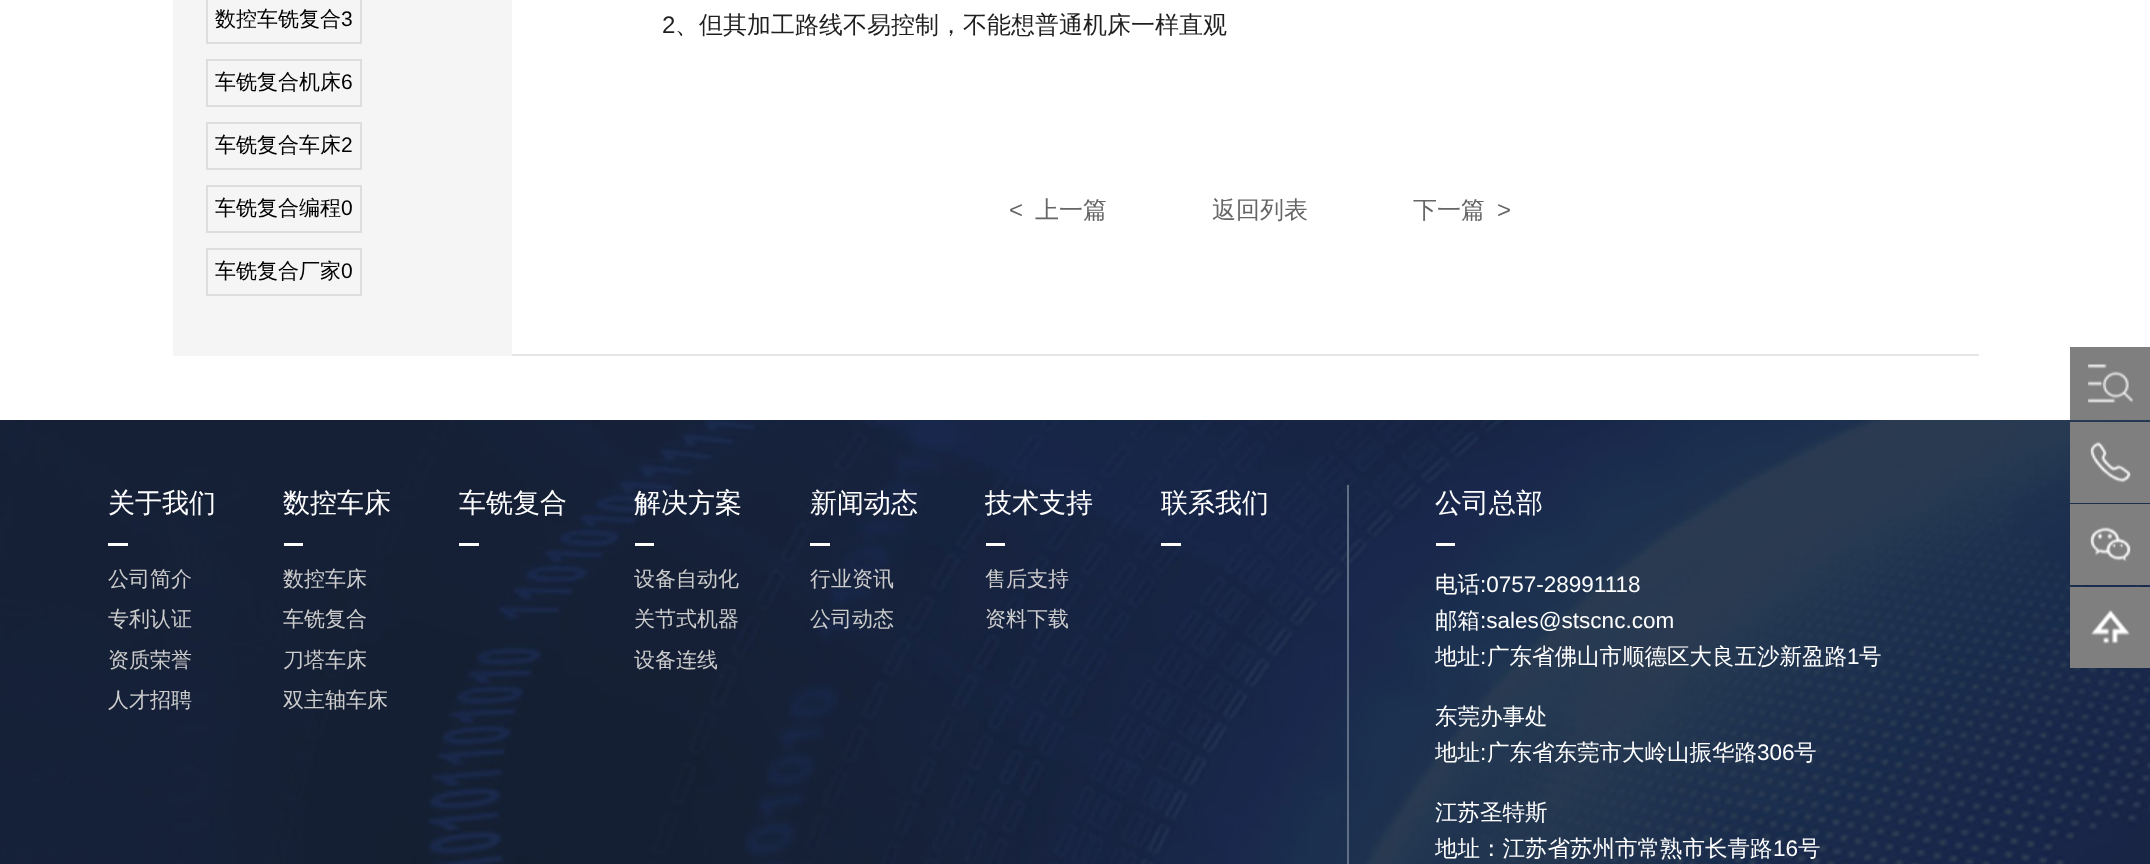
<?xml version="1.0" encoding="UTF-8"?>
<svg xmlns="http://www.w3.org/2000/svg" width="2150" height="864">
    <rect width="100%" height="100%" fill="#FFFFFF"/>
    <rect x="173" y="0" width="339" height="356" fill="#F5F5F5"/>
    <rect x="207" y="-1" width="154" height="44" fill="none" stroke="#DDDDDD" stroke-width="2"/>
    <text x="215" y="26" font-family="WenQuanYi Zen Hei" font-size="21" font-weight="500" fill="#000000">数控车铣复合</text>
    <text x="341" y="26" font-family="Liberation Sans" font-size="21" fill="#000000">3</text>
    <rect x="207" y="60" width="154" height="46" fill="none" stroke="#DDDDDD" stroke-width="2"/>
    <text x="215" y="89" font-family="WenQuanYi Zen Hei" font-size="21" font-weight="500" fill="#000000">车铣复合机床</text>
    <text x="341" y="89" font-family="Liberation Sans" font-size="21" fill="#000000">6</text>
    <rect x="207" y="123" width="154" height="46" fill="none" stroke="#DDDDDD" stroke-width="2"/>
    <text x="215" y="152" font-family="WenQuanYi Zen Hei" font-size="21" font-weight="500" fill="#000000">车铣复合车床</text>
    <text x="341" y="152" font-family="Liberation Sans" font-size="21" fill="#000000">2</text>
    <rect x="207" y="186" width="154" height="46" fill="none" stroke="#DDDDDD" stroke-width="2"/>
    <text x="215" y="215" font-family="WenQuanYi Zen Hei" font-size="21" font-weight="500" fill="#000000">车铣复合编程</text>
    <text x="341" y="215" font-family="Liberation Sans" font-size="21" fill="#000000">0</text>
    <rect x="207" y="249" width="154" height="46" fill="none" stroke="#DDDDDD" stroke-width="2"/>
    <text x="215" y="278" font-family="WenQuanYi Zen Hei" font-size="21" font-weight="500" fill="#000000">车铣复合厂家</text>
    <text x="341" y="278" font-family="Liberation Sans" font-size="21" fill="#000000">0</text>
    <rect x="512" y="354" width="1467" height="2" fill="#E5E5E5"/>
    <text x="662" y="33" font-family="Liberation Sans" font-size="24" fill="#1F1F1F">2</text>
    <text x="675" y="33" font-family="WenQuanYi Zen Hei" font-size="24" font-weight="500" fill="#1F1F1F">、但其加工路线不易控制，不能想普通机床一样直观</text>
    <text x="1009" y="218" font-family="Liberation Sans" font-size="24" fill="#666666">&lt;</text>
    <text x="1035" y="218" font-family="WenQuanYi Zen Hei" font-size="24" font-weight="500" fill="#666666">上一篇</text>
    <text x="1212" y="218" font-family="WenQuanYi Zen Hei" font-size="24" font-weight="500" fill="#666666">返回列表</text>
    <text x="1413" y="218" font-family="WenQuanYi Zen Hei" font-size="24" font-weight="500" fill="#666666">下一篇</text>
    <text x="1497" y="218" font-family="Liberation Sans" font-size="24" fill="#666666">&gt;</text>
    <image x="0" y="420" width="2150" height="444" href="img_01.png"/>
    <text x="108" y="512" font-family="WenQuanYi Zen Hei" font-size="27" font-weight="500" fill="#FFFFFF">关于我们</text>
    <rect x="108" y="543" width="20" height="3" fill="#FFFFFF"/>
    <text font-family="WenQuanYi Zen Hei" font-size="21" font-weight="500" fill="#CCCCCC">
        <tspan x="108" y="586">公司简介</tspan>
        <tspan x="108" y="626">专利认证</tspan>
        <tspan x="108" y="667">资质荣誉</tspan>
        <tspan x="108" y="707">人才招聘</tspan>
    </text>
    <text x="283" y="512" font-family="WenQuanYi Zen Hei" font-size="27" font-weight="500" fill="#FFFFFF">数控车床</text>
    <rect x="284" y="543" width="19" height="3" fill="#FFFFFF"/>
    <text font-family="WenQuanYi Zen Hei" font-size="21" font-weight="500" fill="#CCCCCC">
        <tspan x="283" y="586">数控车床</tspan>
        <tspan x="283" y="626">车铣复合</tspan>
        <tspan x="283" y="667">刀塔车床</tspan>
        <tspan x="283" y="707">双主轴车床</tspan>
    </text>
    <text x="459" y="512" font-family="WenQuanYi Zen Hei" font-size="27" font-weight="500" fill="#FFFFFF">车铣复合</text>
    <rect x="459" y="543" width="20" height="3" fill="#FFFFFF"/>
    <text x="634" y="512" font-family="WenQuanYi Zen Hei" font-size="27" font-weight="500" fill="#FFFFFF">解决方案</text>
    <rect x="635" y="543" width="19" height="3" fill="#FFFFFF"/>
    <text font-family="WenQuanYi Zen Hei" font-size="21" font-weight="500" fill="#CCCCCC">
        <tspan x="634" y="586">设备自动化</tspan>
        <tspan x="634" y="626">关节式机器</tspan>
        <tspan x="634" y="667">设备连线</tspan>
    </text>
    <text x="810" y="512" font-family="WenQuanYi Zen Hei" font-size="27" font-weight="500" fill="#FFFFFF">新闻动态</text>
    <rect x="810" y="543" width="20" height="3" fill="#FFFFFF"/>
    <text font-family="WenQuanYi Zen Hei" font-size="21" font-weight="500" fill="#CCCCCC">
        <tspan x="810" y="586">行业资讯</tspan>
        <tspan x="810" y="626">公司动态</tspan>
    </text>
    <text x="985" y="512" font-family="WenQuanYi Zen Hei" font-size="27" font-weight="500" fill="#FFFFFF">技术支持</text>
    <rect x="986" y="543" width="19" height="3" fill="#FFFFFF"/>
    <text font-family="WenQuanYi Zen Hei" font-size="21" font-weight="500" fill="#CCCCCC">
        <tspan x="985" y="586">售后支持</tspan>
        <tspan x="985" y="626">资料下载</tspan>
    </text>
    <text x="1161" y="512" font-family="WenQuanYi Zen Hei" font-size="27" font-weight="500" fill="#FFFFFF">联系我们</text>
    <rect x="1161" y="543" width="20" height="3" fill="#FFFFFF"/>
    <rect x="1347" y="485" width="2" height="379" fill="#616F85"/>
    <text x="1435" y="512" font-family="WenQuanYi Zen Hei" font-size="27" font-weight="500" fill="#FFFFFF">公司总部</text>
    <rect x="1436" y="543" width="19" height="3" fill="#FFFFFF"/>
    <text x="1435" y="592" font-family="WenQuanYi Zen Hei" font-size="22.5" font-weight="500" fill="#FFFFFF">电话</text>
    <text x="1480" y="592" font-family="Liberation Sans" font-size="22.5" fill="#FFFFFF">:0757-28991118</text>
    <text x="1435" y="628" font-family="WenQuanYi Zen Hei" font-size="22.5" font-weight="500" fill="#FFFFFF">邮箱</text>
    <text x="1480" y="628" font-family="Liberation Sans" font-size="22.5" fill="#FFFFFF">:sales@stscnc.com</text>
    <text x="1435" y="664" font-family="WenQuanYi Zen Hei" font-size="22.5" font-weight="500" fill="#FFFFFF">地址</text>
    <text x="1480" y="664" font-family="Liberation Sans" font-size="22.5" fill="#FFFFFF">:</text>
    <text x="1487" y="664" font-family="WenQuanYi Zen Hei" font-size="22.5" font-weight="500" fill="#FFFFFF">广东省佛山市顺德区大良五沙新盈路</text>
    <text x="1847" y="664" font-family="Liberation Sans" font-size="22.5" fill="#FFFFFF">1</text>
    <text x="1859" y="664" font-family="WenQuanYi Zen Hei" font-size="22.5" font-weight="500" fill="#FFFFFF">号</text>
    <text font-family="WenQuanYi Zen Hei" font-size="22.5" font-weight="500" fill="#FFFFFF">
        <tspan x="1435" y="724">东莞办事处</tspan>
        <tspan x="1435" y="760">地址</tspan>
    </text>
    <text x="1480" y="760" font-family="Liberation Sans" font-size="22.5" fill="#FFFFFF">:</text>
    <text x="1487" y="760" font-family="WenQuanYi Zen Hei" font-size="22.5" font-weight="500" fill="#FFFFFF">广东省东莞市大岭山振华路</text>
    <text x="1757" y="760" font-family="Liberation Sans" font-size="22.5" fill="#FFFFFF">306</text>
    <text x="1794" y="760" font-family="WenQuanYi Zen Hei" font-size="22.5" font-weight="500" fill="#FFFFFF">号</text>
    <text font-family="WenQuanYi Zen Hei" font-size="22.5" font-weight="500" fill="#FFFFFF">
        <tspan x="1435" y="820">江苏圣特斯</tspan>
        <tspan x="1435" y="856">地址：江苏省苏州市常熟市长青路</tspan>
    </text>
    <text x="1773" y="856" font-family="Liberation Sans" font-size="22.5" fill="#FFFFFF">16</text>
    <text x="1798" y="856" font-family="WenQuanYi Zen Hei" font-size="22.5" font-weight="500" fill="#FFFFFF">号</text>
    <rect x="2070" y="347" width="80" height="73" fill="#7F7F7F"/>
    <image x="2088" y="364" width="45" height="39" href="img_02.png"/>
    <rect x="2070" y="422" width="80" height="81" fill="#7F7F7F"/>
    <image x="2090" y="441" width="41" height="42" href="img_03.png"/>
    <rect x="2070" y="504" width="80" height="81" fill="#7F7F7F"/>
    <image x="2089" y="527" width="42" height="35" href="img_04.png"/>
    <rect x="2070" y="587" width="80" height="81" fill="#7F7F7F"/>
    <image x="2091" y="610" width="39" height="34" href="img_05.png"/>
</svg>
